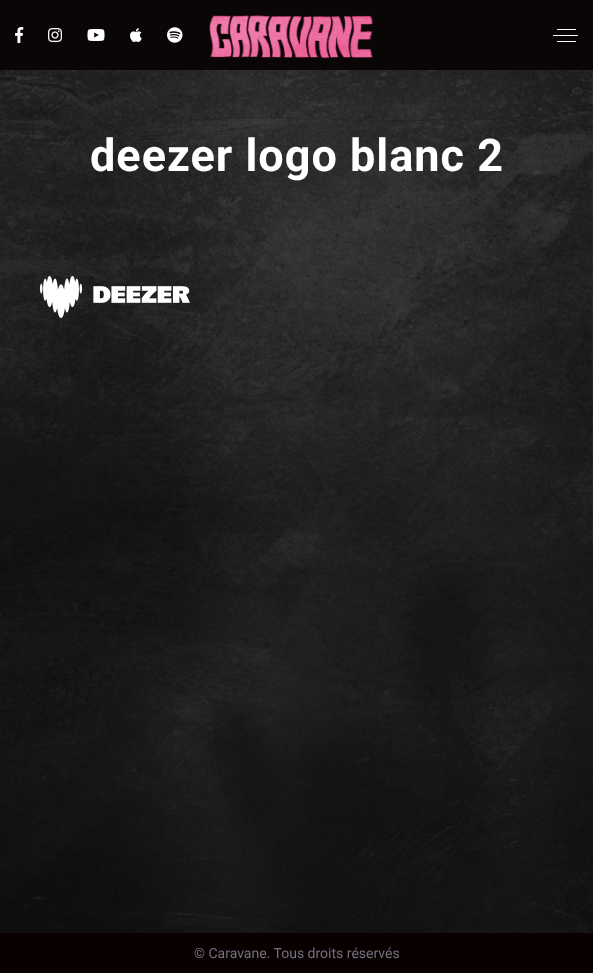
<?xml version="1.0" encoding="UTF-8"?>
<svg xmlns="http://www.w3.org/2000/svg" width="593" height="973">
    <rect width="100%" height="100%" fill="#FFFFFF"/>
    <image x="592" y="70" width="1" height="863" href="img_01.png"/>
    <rect x="0" y="0" width="593" height="70" fill="#0A0606"/>
    <image x="15" y="27" width="9" height="16" href="img_02.png"/>
    <image x="48" y="28" width="14" height="14" href="img_03.png"/>
    <image x="87" y="29" width="18" height="12" href="img_04.png"/>
    <image x="130" y="28" width="12" height="14" href="img_05.png"/>
    <image x="167" y="27" width="16" height="16" href="img_06.png"/>
    <image x="209" y="15" width="164" height="44" href="img_07.png"/>
    <rect x="557" y="29" width="19" height="1" fill="#FFFFFF"/>
    <rect x="553" y="35" width="25" height="1" fill="#FFFFFF"/>
    <rect x="557" y="41" width="19" height="1" fill="#FFFFFF"/>
    <image x="0" y="70" width="593" height="863" href="img_08.png"/>
    <text x="90" y="171" font-family="Roboto" font-size="45" font-weight="700" letter-spacing="1" fill="#FFFFFF">deezer logo blanc 2</text>
    <image x="40" y="276" width="150" height="42" href="img_09.png"/>
    <rect x="0" y="933" width="593" height="40" fill="#0A0000"/>
    <text x="194" y="958" font-family="Roboto" font-size="14" fill="#707281">© Caravane. Tous droits réservés</text>
</svg>
